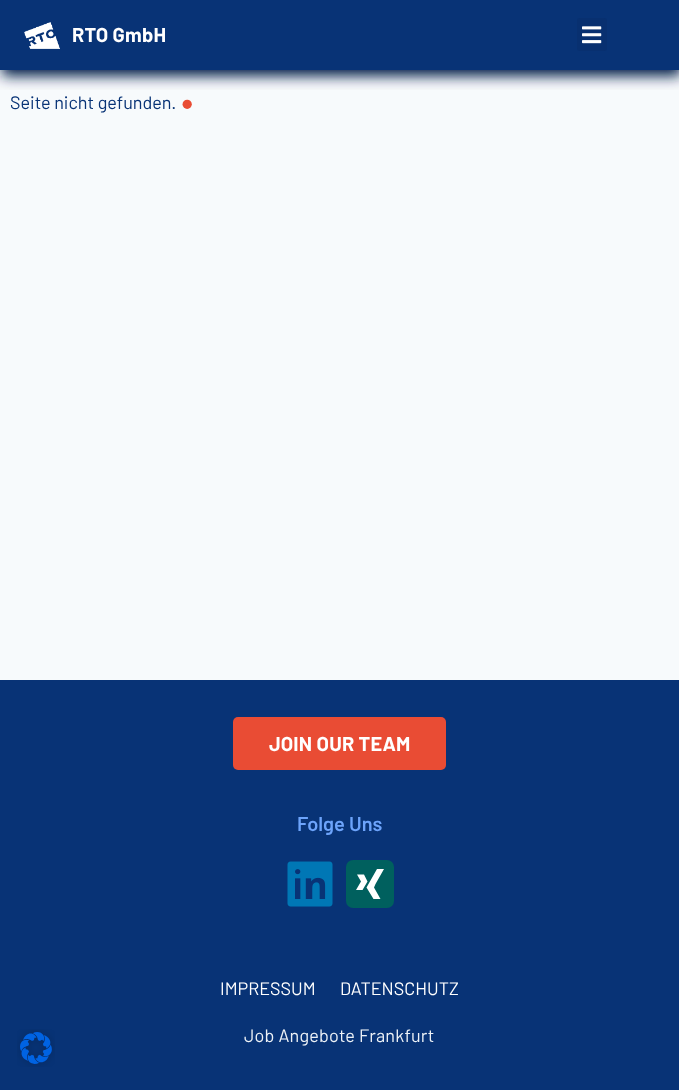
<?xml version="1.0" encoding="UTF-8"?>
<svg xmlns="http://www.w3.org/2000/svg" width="679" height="1090">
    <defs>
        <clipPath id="clip1"><rect x="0" y="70" width="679" height="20"/></clipPath>
        <filter id="blur1" x="-50%" y="-200%" width="200%" height="500%"><feGaussianBlur stdDeviation="7"/></filter>
    </defs>
    <rect width="100%" height="100%" fill="#F7FAFC"/>
    <rect x="0" y="0" width="679" height="70" fill="#083376"/>
    <g clip-path="url(#clip1)">
        <rect x="2" y="6" width="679" height="70" fill="#001C47" filter="url(#blur1)"/>
    </g>
    <image x="24" y="22" width="36" height="27" href="img_01.png"/>
    <text x="72" y="42" font-family="Barlow" font-size="20" font-weight="700" letter-spacing="0.2" fill="#FFFFFF">RTO GmbH</text>
    <rect x="577" y="18" width="30" height="33" rx="3" fill="#083070"/>
    <image x="582" y="26" width="20" height="18" href="img_02.png"/>
    <text x="10" y="109" font-family="Barlow" font-size="18" fill="#083376">Seite nicht gefunden.</text>
    <text x="181" y="115" font-family="Barlow" font-size="40" fill="#E94C34">•</text>
    <rect x="0" y="680" width="679" height="410" fill="#083376"/>
    <rect x="233" y="717" width="213" height="53" rx="5" fill="#E94C34"/>
    <text x="269" y="751" font-family="Barlow" font-size="20" font-weight="700" letter-spacing="0.2" fill="#FFFFFF">JOIN OUR TEAM</text>
    <text x="297" y="831" font-family="Barlow" font-size="20" font-weight="600" fill="#6DA4FB">Folge Uns</text>
    <image x="287" y="861" width="46" height="46" href="img_03.png"/>
    <rect x="346" y="860" width="48" height="48" rx="7" fill="#00605E"/>
    <path d="M 367.5 881.5 L 362.5 890 H 356 L 361 881.5 L 357 874.5 H 364 Z" fill="#FFFFFF"/>
    <path d="M 374 887.5 L 380.5 899 H 373.5 L 366.5 887.5 L 377 869 H 384 L 375.5 884 Z" fill="#FFFFFF"/>
    <text x="220" y="995" font-family="Barlow" font-size="18" fill="#FFFFFF">IMPRESSUM</text>
    <text x="340" y="995" font-family="Barlow" font-size="18" fill="#FFFFFF">DATENSCHUTZ</text>
    <text x="244" y="1042" font-family="Barlow" font-size="18" letter-spacing="0.2" fill="#EDF2F7">Job Angebote Frankfurt</text>
    <image x="17" y="1029" width="38" height="38" href="img_04.png"/>
</svg>
